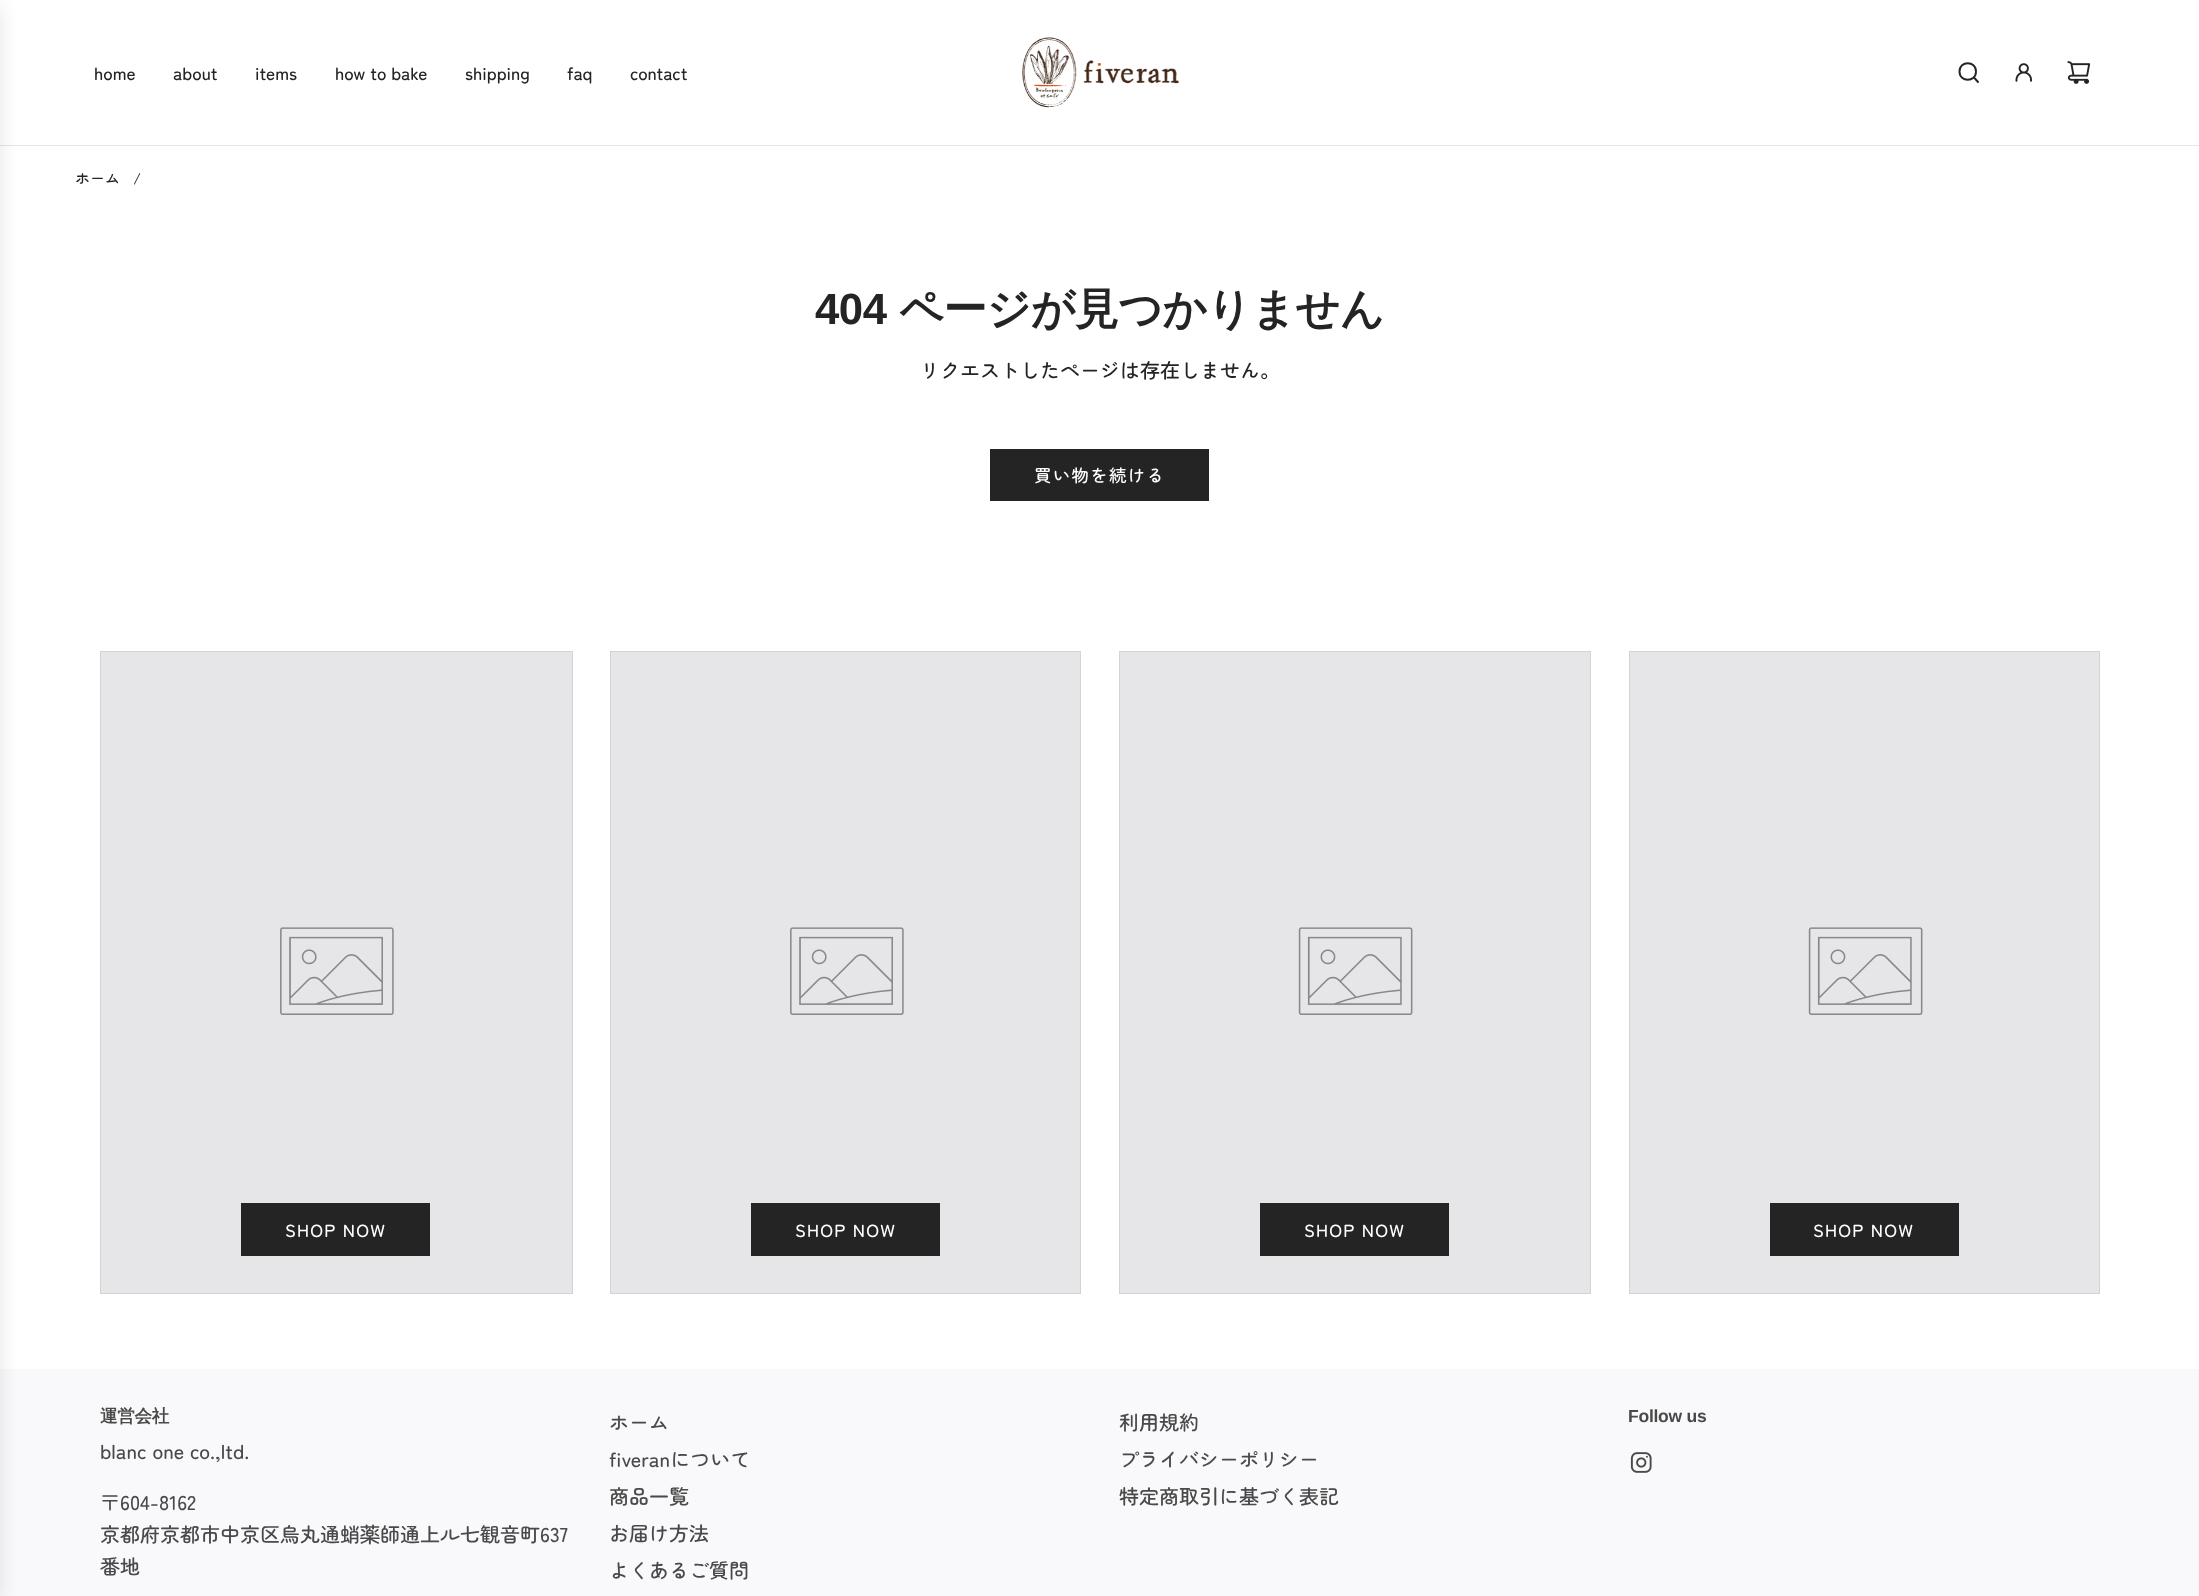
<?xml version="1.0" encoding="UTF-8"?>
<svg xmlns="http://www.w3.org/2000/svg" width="2199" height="1596">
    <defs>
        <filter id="blur1" x="-50%" y="-200%" width="200%" height="500%"><feGaussianBlur stdDeviation="9.5"/></filter>
    </defs>
    <rect width="100%" height="100%" fill="#FFFFFF"/>
    <rect x="0" y="145" width="2199" height="1" fill="#E6E5E7"/>
    <rect x="0" y="1369" width="2199" height="227" fill="#F9F9FB"/>
    <rect x="-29" y="6" width="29" height="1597" fill="#000000" fill-opacity="0.1" filter="url(#blur1)"/>
    <text x="94" y="80" font-family="Zen Maru Gothic" font-size="17.5" font-weight="500" fill="#242424">home</text>
    <text x="173" y="80" font-family="Zen Maru Gothic" font-size="17.5" font-weight="500" fill="#242424">about</text>
    <text x="255" y="80" font-family="Zen Maru Gothic" font-size="17.5" font-weight="500" fill="#242424">items</text>
    <text x="335" y="80" font-family="Zen Maru Gothic" font-size="17.5" font-weight="500" fill="#242424">how to bake</text>
    <text x="465" y="80" font-family="Zen Maru Gothic" font-size="17.5" font-weight="500" fill="#242424">shipping</text>
    <text x="567" y="80" font-family="Zen Maru Gothic" font-size="17.5" font-weight="500" fill="#242424">faq</text>
    <text x="630" y="80" font-family="Zen Maru Gothic" font-size="17.5" font-weight="500" fill="#242424">contact</text>
    <image x="1022" y="37" width="157" height="71" href="img_01.png"/>
    <path d="M 1974 77.5 L 1978 82 M 1959.5 71.5 C 1959.5 82.5 1976 82.5 1976 71.5 C 1976 60.5 1959.5 60.5 1959.5 71.5 Z" fill="none" stroke="#242424" stroke-width="1.9" stroke-linecap="round" stroke-linejoin="round"/>
    <image x="2015" y="63" width="17" height="19" href="img_02.png"/>
    <image x="2067" y="61" width="24" height="23" href="img_03.png"/>
    <text x="75" y="184" font-family="Zen Maru Gothic" font-size="15" font-weight="500" fill="#242424">ホーム</text>
    <text x="133" y="184" font-family="Zen Maru Gothic" font-size="15" font-weight="500" fill="#242424">/</text>
    <text x="815" y="324" font-family="Liberation Sans" font-size="43.75" font-weight="700" letter-spacing="-0.5" fill="#242424">404</text>
    <text x="899" y="324" font-family="WenQuanYi Zen Hei" font-size="43.75" font-weight="700" letter-spacing="-0.5" fill="#242424">ページが見つかりません</text>
    <text x="920" y="378" font-family="Zen Maru Gothic" font-size="20" font-weight="500" fill="#242424">リクエストしたページは存在しません。</text>
    <rect x="990" y="449" width="219" height="52" fill="#242424"/>
    <text x="1034" y="482" font-family="Zen Maru Gothic" font-size="17.5" font-weight="500" letter-spacing="1.25" fill="#FFFFFF">買い物を続ける</text>
    <rect x="100.5" y="651.5" width="472" height="642" fill="#E6E5E7" stroke="#D4D3D4"/>
    <image x="280" y="927" width="114" height="88" href="img_04.png"/>
    <rect x="241" y="1203" width="189" height="53" fill="#242424"/>
    <text x="285" y="1237" font-family="Zen Maru Gothic" font-size="17.5" font-weight="500" letter-spacing="1.25" fill="#FFFFFF">SHOP NOW</text>
    <rect x="610.5" y="651.5" width="470" height="642" fill="#E6E5E7" stroke="#D4D3D4"/>
    <image x="790" y="927" width="114" height="88" href="img_04.png"/>
    <rect x="751" y="1203" width="189" height="53" fill="#242424"/>
    <text x="795" y="1237" font-family="Zen Maru Gothic" font-size="17.5" font-weight="500" letter-spacing="1.25" fill="#FFFFFF">SHOP NOW</text>
    <rect x="1119.5" y="651.5" width="471" height="642" fill="#E6E5E7" stroke="#D4D3D4"/>
    <image x="1298" y="927" width="115" height="88" href="img_05.png"/>
    <rect x="1260" y="1203" width="189" height="53" fill="#242424"/>
    <text x="1304" y="1237" font-family="Zen Maru Gothic" font-size="17.5" font-weight="500" letter-spacing="1.25" fill="#FFFFFF">SHOP NOW</text>
    <rect x="1629.5" y="651.5" width="470" height="642" fill="#E6E5E7" stroke="#D4D3D4"/>
    <image x="1808" y="927" width="115" height="88" href="img_05.png"/>
    <rect x="1770" y="1203" width="189" height="53" fill="#242424"/>
    <text x="1813" y="1237" font-family="Zen Maru Gothic" font-size="17.5" font-weight="500" letter-spacing="1.25" fill="#FFFFFF">SHOP NOW</text>
    <text x="100" y="1422" font-family="WenQuanYi Zen Hei" font-size="17.5" font-weight="700" letter-spacing="-0.25" fill="#494949">運営会社</text>
    <text x="100" y="1459" font-family="Zen Maru Gothic" font-size="20" font-weight="500" fill="#494949">blanc one co.,ltd.</text>
    <text font-family="Zen Maru Gothic" font-size="20" font-weight="500" fill="#494949">
        <tspan x="100" y="1510">〒604-8162</tspan>
        <tspan x="100" y="1542">京都府京都市中京区烏丸通蛸薬師通上ル七観音町637</tspan>
        <tspan x="100" y="1574">番地</tspan>
    </text>
    <text font-family="Zen Maru Gothic" font-size="20" font-weight="500" fill="#494949">
        <tspan x="609" y="1430">ホーム</tspan>
        <tspan x="609" y="1467">fiveranについて</tspan>
        <tspan x="609" y="1504">商品一覧</tspan>
        <tspan x="609" y="1541">お届け方法</tspan>
        <tspan x="609" y="1578">よくあるご質問</tspan>
    </text>
    <text font-family="Zen Maru Gothic" font-size="20" font-weight="500" fill="#494949">
        <tspan x="1119" y="1430">利用規約</tspan>
        <tspan x="1119" y="1467">プライバシーポリシー</tspan>
        <tspan x="1119" y="1504">特定商取引に基づく表記</tspan>
    </text>
    <text x="1628" y="1422" font-family="Liberation Sans" font-size="17.5" font-weight="700" letter-spacing="-0.25" fill="#494949">Follow us</text>
    <image x="1630" y="1452" width="22" height="21" href="img_06.png"/>
</svg>
